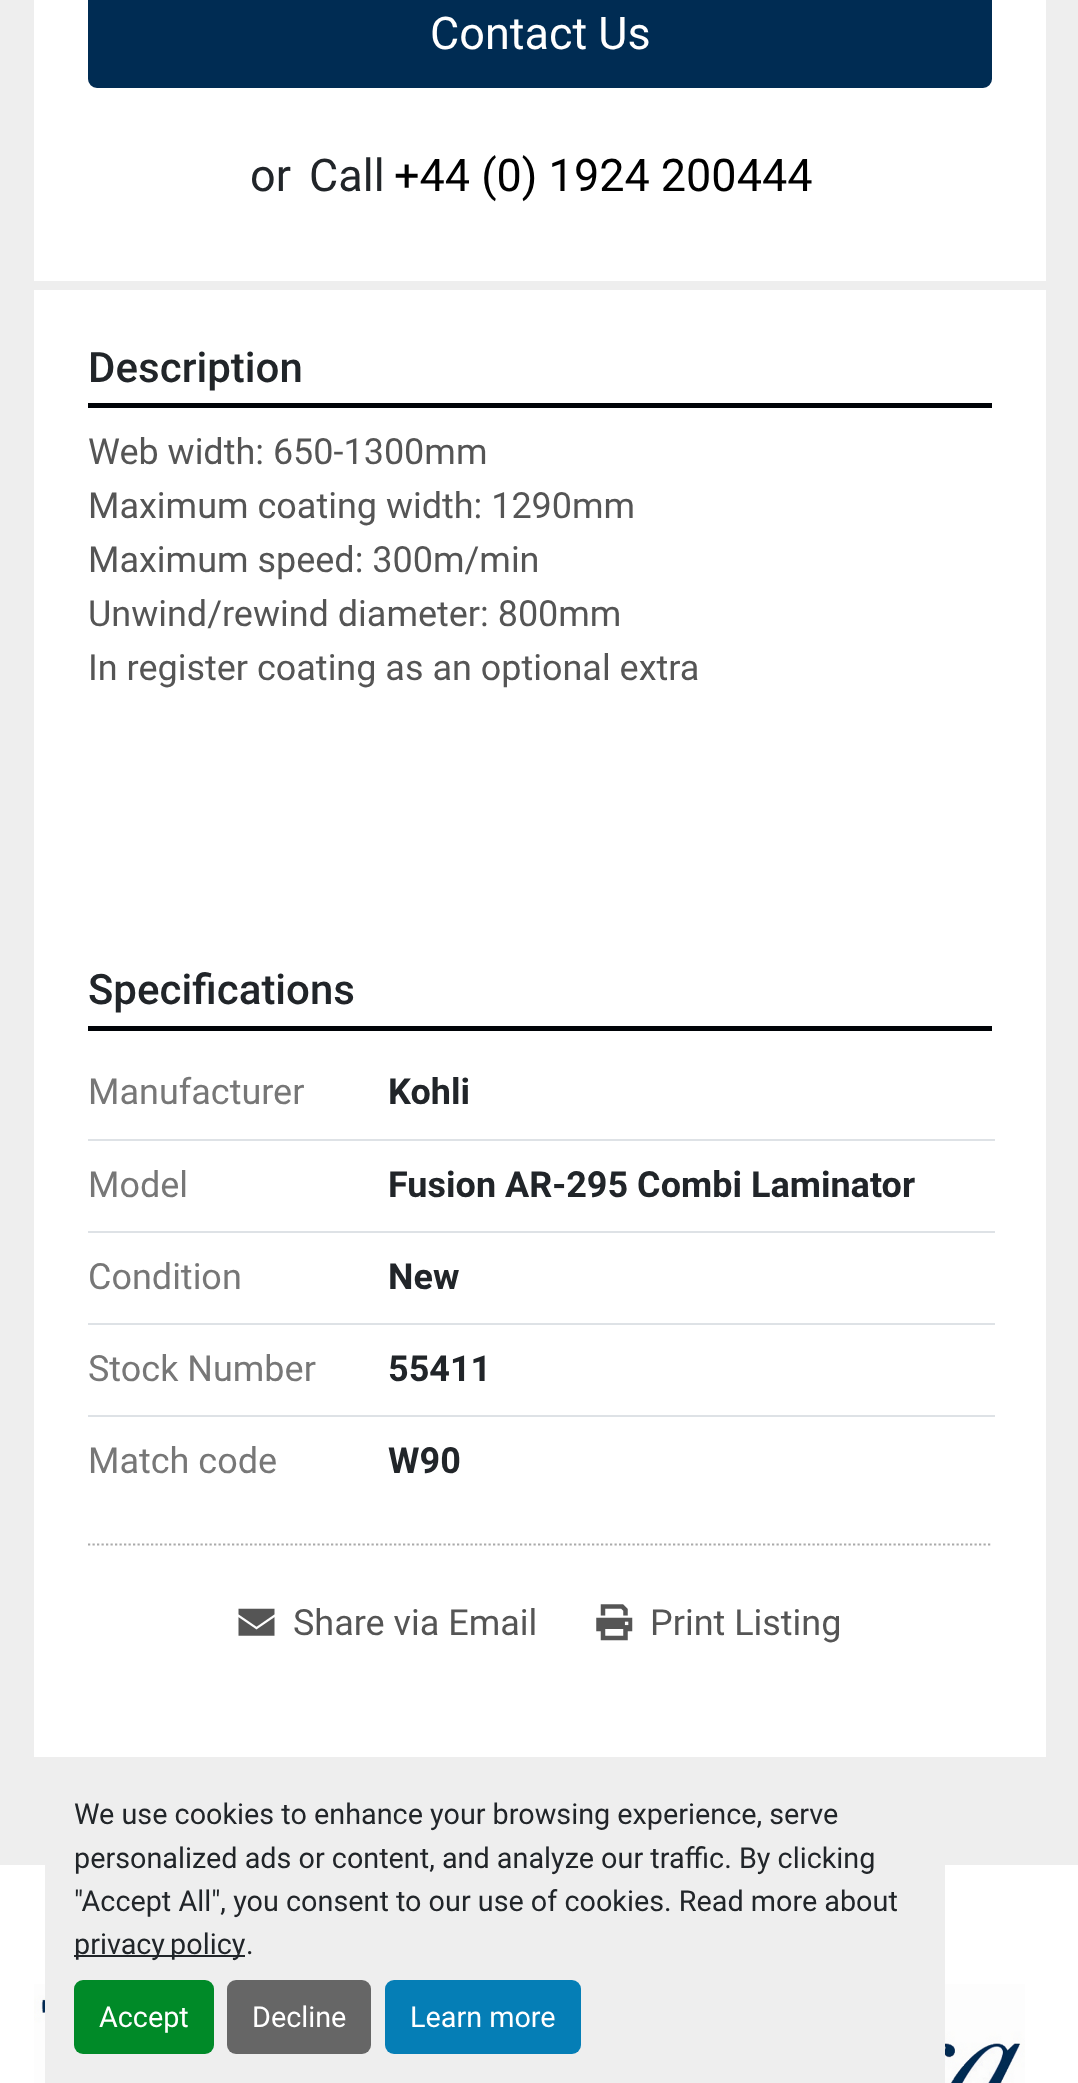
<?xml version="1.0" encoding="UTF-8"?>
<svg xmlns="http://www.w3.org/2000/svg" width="1078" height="2083">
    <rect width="100%" height="100%" fill="#EEEEEE"/>
    <rect x="34" y="0" width="1012" height="1757" fill="#FFFFFF"/>
    <rect x="34" y="281" width="1012" height="9" fill="#EEEEEE"/>
    <rect x="89" y="-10" width="902" height="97" rx="8" fill="#002C53" stroke="#002C53" stroke-width="2"/>
    <text x="430" y="49" font-family="Roboto" font-size="45" fill="#FFFFFF">Contact Us</text>
    <text x="250" y="191" font-family="Roboto" font-size="45" fill="#212529">or</text>
    <text x="309" y="191" font-family="Roboto" font-size="45" fill="#212529">Call</text>
    <text x="394" y="191" font-family="Roboto" font-size="45" fill="#000000">+44 (0) 1924 200444</text>
    <rect x="88" y="403" width="904" height="5" fill="#000307"/>
    <text x="88" y="382" font-family="Roboto" font-size="42" font-weight="500" fill="#212529">Description</text>
    <text font-family="Roboto" font-size="36" fill="#555555">
        <tspan x="88" y="464">Web width: 650-1300mm</tspan>
        <tspan x="88" y="518">Maximum coating width: 1290mm</tspan>
        <tspan x="88" y="572">Maximum speed: 300m/min</tspan>
        <tspan x="88" y="626">Unwind/rewind diameter: 800mm</tspan>
        <tspan x="88" y="680">In register coating as an optional extra</tspan>
    </text>
    <rect x="88" y="1026" width="904" height="5" fill="#000307"/>
    <text x="88" y="1004" font-family="Roboto" font-size="42" font-weight="500" fill="#212529">Specifications</text>
    <rect x="88" y="1139" width="907" height="2" fill="#DEE2E6"/>
    <text x="88" y="1104" font-family="Roboto" font-size="36" fill="#777777">Manufacturer</text>
    <text x="388" y="1104" font-family="Roboto" font-size="36" font-weight="700" fill="#212529">Kohli</text>
    <rect x="88" y="1231" width="907" height="2" fill="#DEE2E6"/>
    <text x="88" y="1197" font-family="Roboto" font-size="36" fill="#777777">Model</text>
    <text x="388" y="1197" font-family="Roboto" font-size="36" font-weight="700" fill="#212529">Fusion AR-295 Combi Laminator</text>
    <rect x="88" y="1323" width="907" height="2" fill="#DEE2E6"/>
    <text x="88" y="1289" font-family="Roboto" font-size="36" fill="#777777">Condition</text>
    <text x="388" y="1289" font-family="Roboto" font-size="36" font-weight="700" fill="#212529">New</text>
    <rect x="88" y="1415" width="907" height="2" fill="#DEE2E6"/>
    <text x="88" y="1381" font-family="Roboto" font-size="36" fill="#777777">Stock Number</text>
    <text x="388" y="1381" font-family="Roboto" font-size="36" font-weight="700" fill="#212529">55411</text>
    <text x="88" y="1473" font-family="Roboto" font-size="36" fill="#777777">Match code</text>
    <text x="388" y="1473" font-family="Roboto" font-size="36" font-weight="700" fill="#212529">W90</text>
    <path d="M 88 1544.5 H 992" fill="none" stroke="#AAAAAA" stroke-width="2.2" stroke-dasharray="2.25 2.25"/>
    <image x="238" y="1608" width="37" height="28" href="img_01.png"/>
    <text x="293" y="1635" font-family="Roboto" font-size="36" fill="#555555">Share via Email</text>
    <image x="596" y="1604" width="37" height="37" href="img_02.png"/>
    <text x="650" y="1635" font-family="Roboto" font-size="36" fill="#555555">Print Listing</text>
    <rect x="0" y="1865" width="1078" height="218" fill="#FFFFFF"/>
    <image x="34" y="1984" width="991" height="99" href="img_03.png"/>
    <rect x="45" y="1865" width="900" height="218" fill="#EEEEEE"/>
    <text font-family="Roboto" font-size="28.8" fill="#212529">
        <tspan x="74" y="1824">We use cookies to enhance your browsing experience, serve</tspan>
        <tspan x="74" y="1868">personalized ads or content, and analyze our traffic. By clicking</tspan>
        <tspan x="74" y="1911">"Accept All", you consent to our use of cookies. Read more about</tspan>
    </text>
    <rect x="74" y="1955" width="171" height="2" fill="#212529"/>
    <text x="74" y="1954" word-spacing="-2" font-family="Roboto" font-size="28.8" fill="#212529">privacy policy</text>
    <text x="246" y="1954" font-family="Roboto" font-size="28.8" fill="#212529">.</text>
    <rect x="74" y="1980" width="140" height="74" rx="9" fill="#008A28"/>
    <text x="99" y="2027" font-family="Roboto" font-size="28.8" fill="#FFFFFF">Accept</text>
    <rect x="227" y="1980" width="144" height="74" rx="9" fill="#666666"/>
    <text x="252" y="2027" font-family="Roboto" font-size="28.8" fill="#FFFFFF">Decline</text>
    <rect x="385" y="1980" width="196" height="74" rx="9" fill="#057EB6"/>
    <text x="410" y="2027" font-family="Roboto" font-size="28.8" fill="#FFFFFF">Learn more</text>
</svg>
